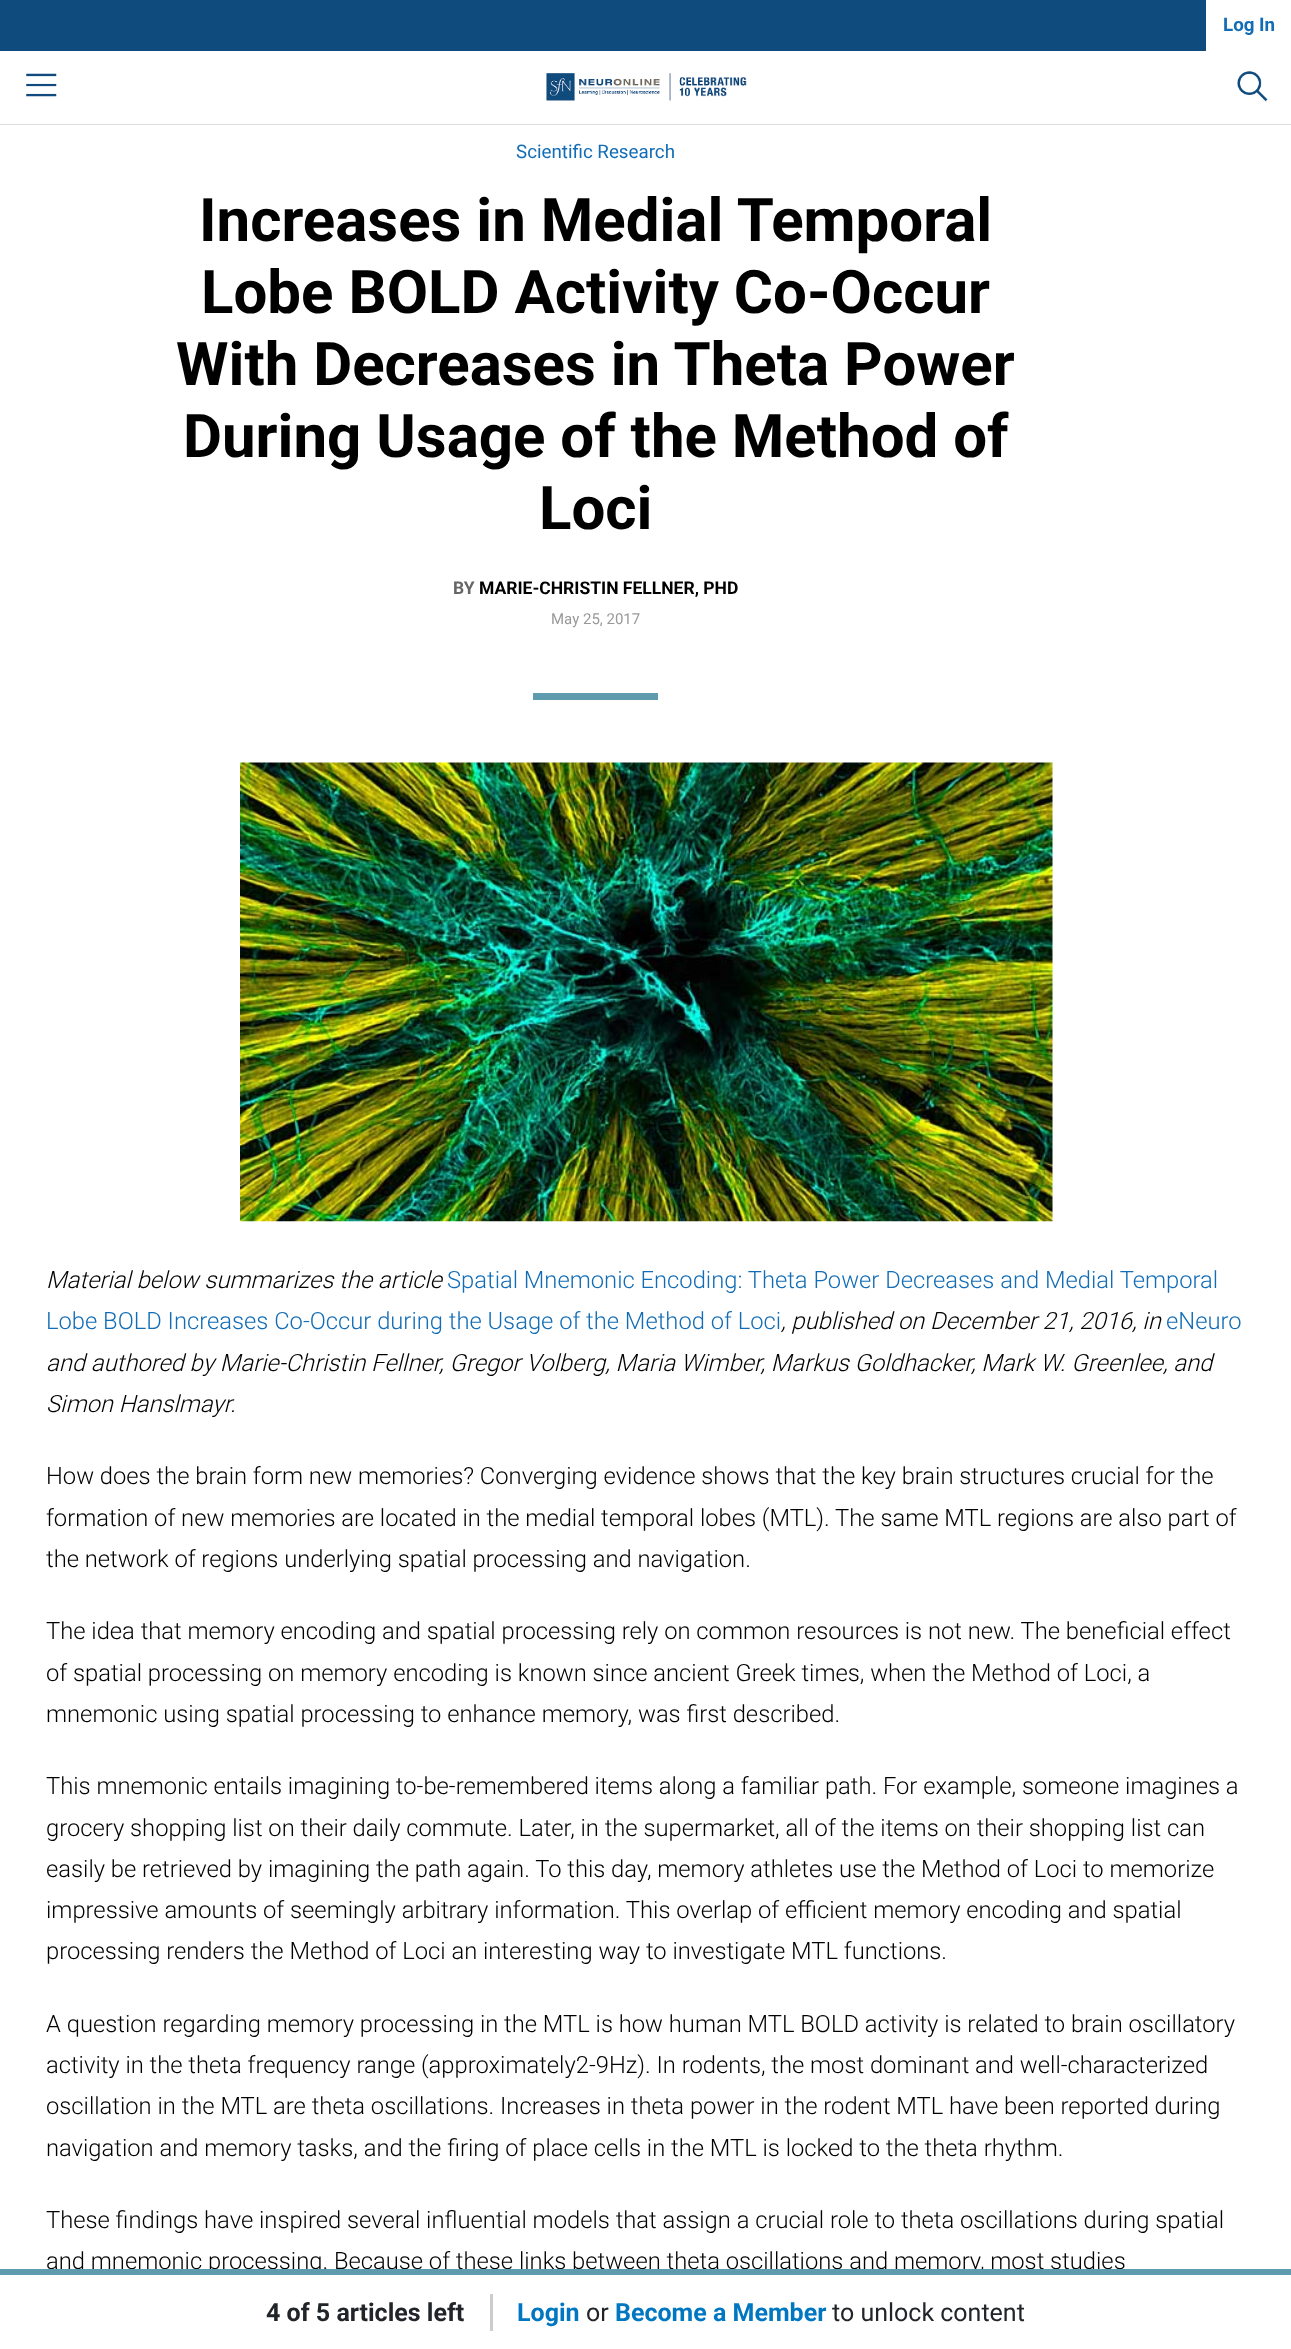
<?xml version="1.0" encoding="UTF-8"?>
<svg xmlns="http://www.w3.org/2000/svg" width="1291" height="2349">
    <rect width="100%" height="100%" fill="#FFFFFF"/>
    <rect x="0" y="124" width="1291" height="1" fill="#DDDDDD"/>
    <rect x="0" y="0" width="1206" height="51" fill="#104B7D"/>
    <text x="1223" y="31" font-family="Roboto" font-size="18.75" font-weight="700" fill="#126DB6">Log In</text>
    <image x="26" y="73" width="31" height="24" href="img_01.png"/>
    <image x="546" y="73" width="201" height="28" href="img_02.png"/>
    <image x="1237" y="71" width="31" height="31" href="img_03.png"/>
    <text x="516" y="158" font-family="Roboto" font-size="18.75" fill="#126DB6">Scientific Research</text>
    <text x="199" y="241" font-family="Roboto" font-size="60" font-weight="700" fill="#000000">Increases in Medial Temporal</text>
    <text x="201" y="313" font-family="Roboto" font-size="60" font-weight="700" fill="#000000">Lobe BOLD Activity Co-Occur</text>
    <text x="176" y="385" font-family="Roboto" font-size="60" font-weight="700" fill="#000000">With Decreases in Theta Power</text>
    <text x="183" y="457" font-family="Roboto" font-size="60" font-weight="700" fill="#000000">During Usage of the Method of</text>
    <text x="539" y="529" font-family="Roboto" font-size="60" font-weight="700" fill="#000000">Loci</text>
    <text x="453" y="594" font-family="Roboto" font-size="17.5" font-weight="700" fill="#666666">BY</text>
    <text x="479" y="594" font-family="Roboto" font-size="17.5" font-weight="700" fill="#000000">MARIE-CHRISTIN FELLNER, PHD</text>
    <text x="551" y="624" font-family="Roboto" font-size="15" fill="#999999">May 25, 2017</text>
    <rect x="533" y="693" width="125" height="7" fill="#5F9BAF"/>
    <image x="240" y="762" width="813" height="460" href="img_04.png"/>
    <text x="46" y="1288" font-family="Roboto" font-size="23.75" font-weight="300" font-style="italic" fill="#000000">Material below summarizes the article</text>
    <text x="447" y="1288" font-family="Roboto" font-size="23.75" font-weight="300" fill="#126DB6">Spatial Mnemonic Encoding: Theta Power Decreases and Medial Temporal</text>
    <text x="46" y="1329" font-family="Roboto" font-size="23.75" font-weight="300" fill="#126DB6">Lobe BOLD Increases Co-Occur during the Usage of the Method of Loci</text>
    <text x="781" y="1329" font-family="Roboto" font-size="23.75" font-weight="300" font-style="italic" fill="#000000">, published on December 21, 2016, in</text>
    <text x="1166" y="1329" font-family="Roboto" font-size="23.75" font-weight="300" fill="#126DB6">eNeuro</text>
    <text font-family="Roboto" font-size="23.75" font-weight="300" font-style="italic" fill="#000000">
        <tspan x="46" y="1371">and authored by Marie-Christin Fellner, Gregor Volberg, Maria Wimber, Markus Goldhacker, Mark W. Greenlee, and</tspan>
        <tspan x="46" y="1412">Simon Hanslmayr.</tspan>
    </text>
    <text font-family="Roboto" font-size="23.75" font-weight="300" fill="#000000">
        <tspan x="46" y="1484">How does the brain form new memories? Converging evidence shows that the key brain structures crucial for the</tspan>
        <tspan x="46" y="1526">formation of new memories are located in the medial temporal lobes (MTL). The same MTL regions are also part of</tspan>
        <tspan x="46" y="1567">the network of regions underlying spatial processing and navigation.</tspan>
    </text>
    <text font-family="Roboto" font-size="23.75" font-weight="300" fill="#000000">
        <tspan x="46" y="1639">The idea that memory encoding and spatial processing rely on common resources is not new. The beneficial effect</tspan>
        <tspan x="46" y="1681">of spatial processing on memory encoding is known since ancient Greek times, when the Method of Loci, a</tspan>
        <tspan x="46" y="1722">mnemonic using spatial processing to enhance memory, was first described.</tspan>
    </text>
    <text font-family="Roboto" font-size="23.75" font-weight="300" fill="#000000">
        <tspan x="46" y="1794">This mnemonic entails imagining to-be-remembered items along a familiar path. For example, someone imagines a</tspan>
        <tspan x="46" y="1836">grocery shopping list on their daily commute. Later, in the supermarket, all of the items on their shopping list can</tspan>
        <tspan x="46" y="1877">easily be retrieved by imagining the path again. To this day, memory athletes use the Method of Loci to memorize</tspan>
        <tspan x="46" y="1918">impressive amounts of seemingly arbitrary information. This overlap of efficient memory encoding and spatial</tspan>
        <tspan x="46" y="1959">processing renders the Method of Loci an interesting way to investigate MTL functions.</tspan>
    </text>
    <text font-family="Roboto" font-size="23.75" font-weight="300" fill="#000000">
        <tspan x="46" y="2032">A question regarding memory processing in the MTL is how human MTL BOLD activity is related to brain oscillatory</tspan>
        <tspan x="46" y="2073">activity in the theta frequency range (approximately2-9Hz). In rodents, the most dominant and well-characterized</tspan>
        <tspan x="46" y="2114">oscillation in the MTL are theta oscillations. Increases in theta power in the rodent MTL have been reported during</tspan>
        <tspan x="46" y="2156">navigation and memory tasks, and the firing of place cells in the MTL is locked to the theta rhythm.</tspan>
    </text>
    <text font-family="Roboto" font-size="23.75" font-weight="300" fill="#000000">
        <tspan x="46" y="2228">These findings have inspired several influential models that assign a crucial role to theta oscillations during spatial</tspan>
        <tspan x="46" y="2269">and mnemonic processing. Because of these links between theta oscillations and memory, most studies</tspan>
    </text>
    <rect x="0" y="2269" width="1291" height="6" fill="#5F9BAF"/>
    <rect x="490" y="2294" width="3" height="37" fill="#CCCCCC"/>
    <text x="266" y="2321" font-family="Roboto" font-size="25" font-weight="700" fill="#212529">4 of 5 articles left</text>
    <text x="517" y="2321" font-family="Roboto" font-size="25" font-weight="700" fill="#0077C0">Login</text>
    <text x="586" y="2321" font-family="Roboto" font-size="25" fill="#212529">or</text>
    <text x="615" y="2321" font-family="Roboto" font-size="25" font-weight="700" fill="#0077C0">Become a Member</text>
    <text x="832" y="2321" font-family="Roboto" font-size="25" fill="#212529">to unlock content</text>
</svg>
